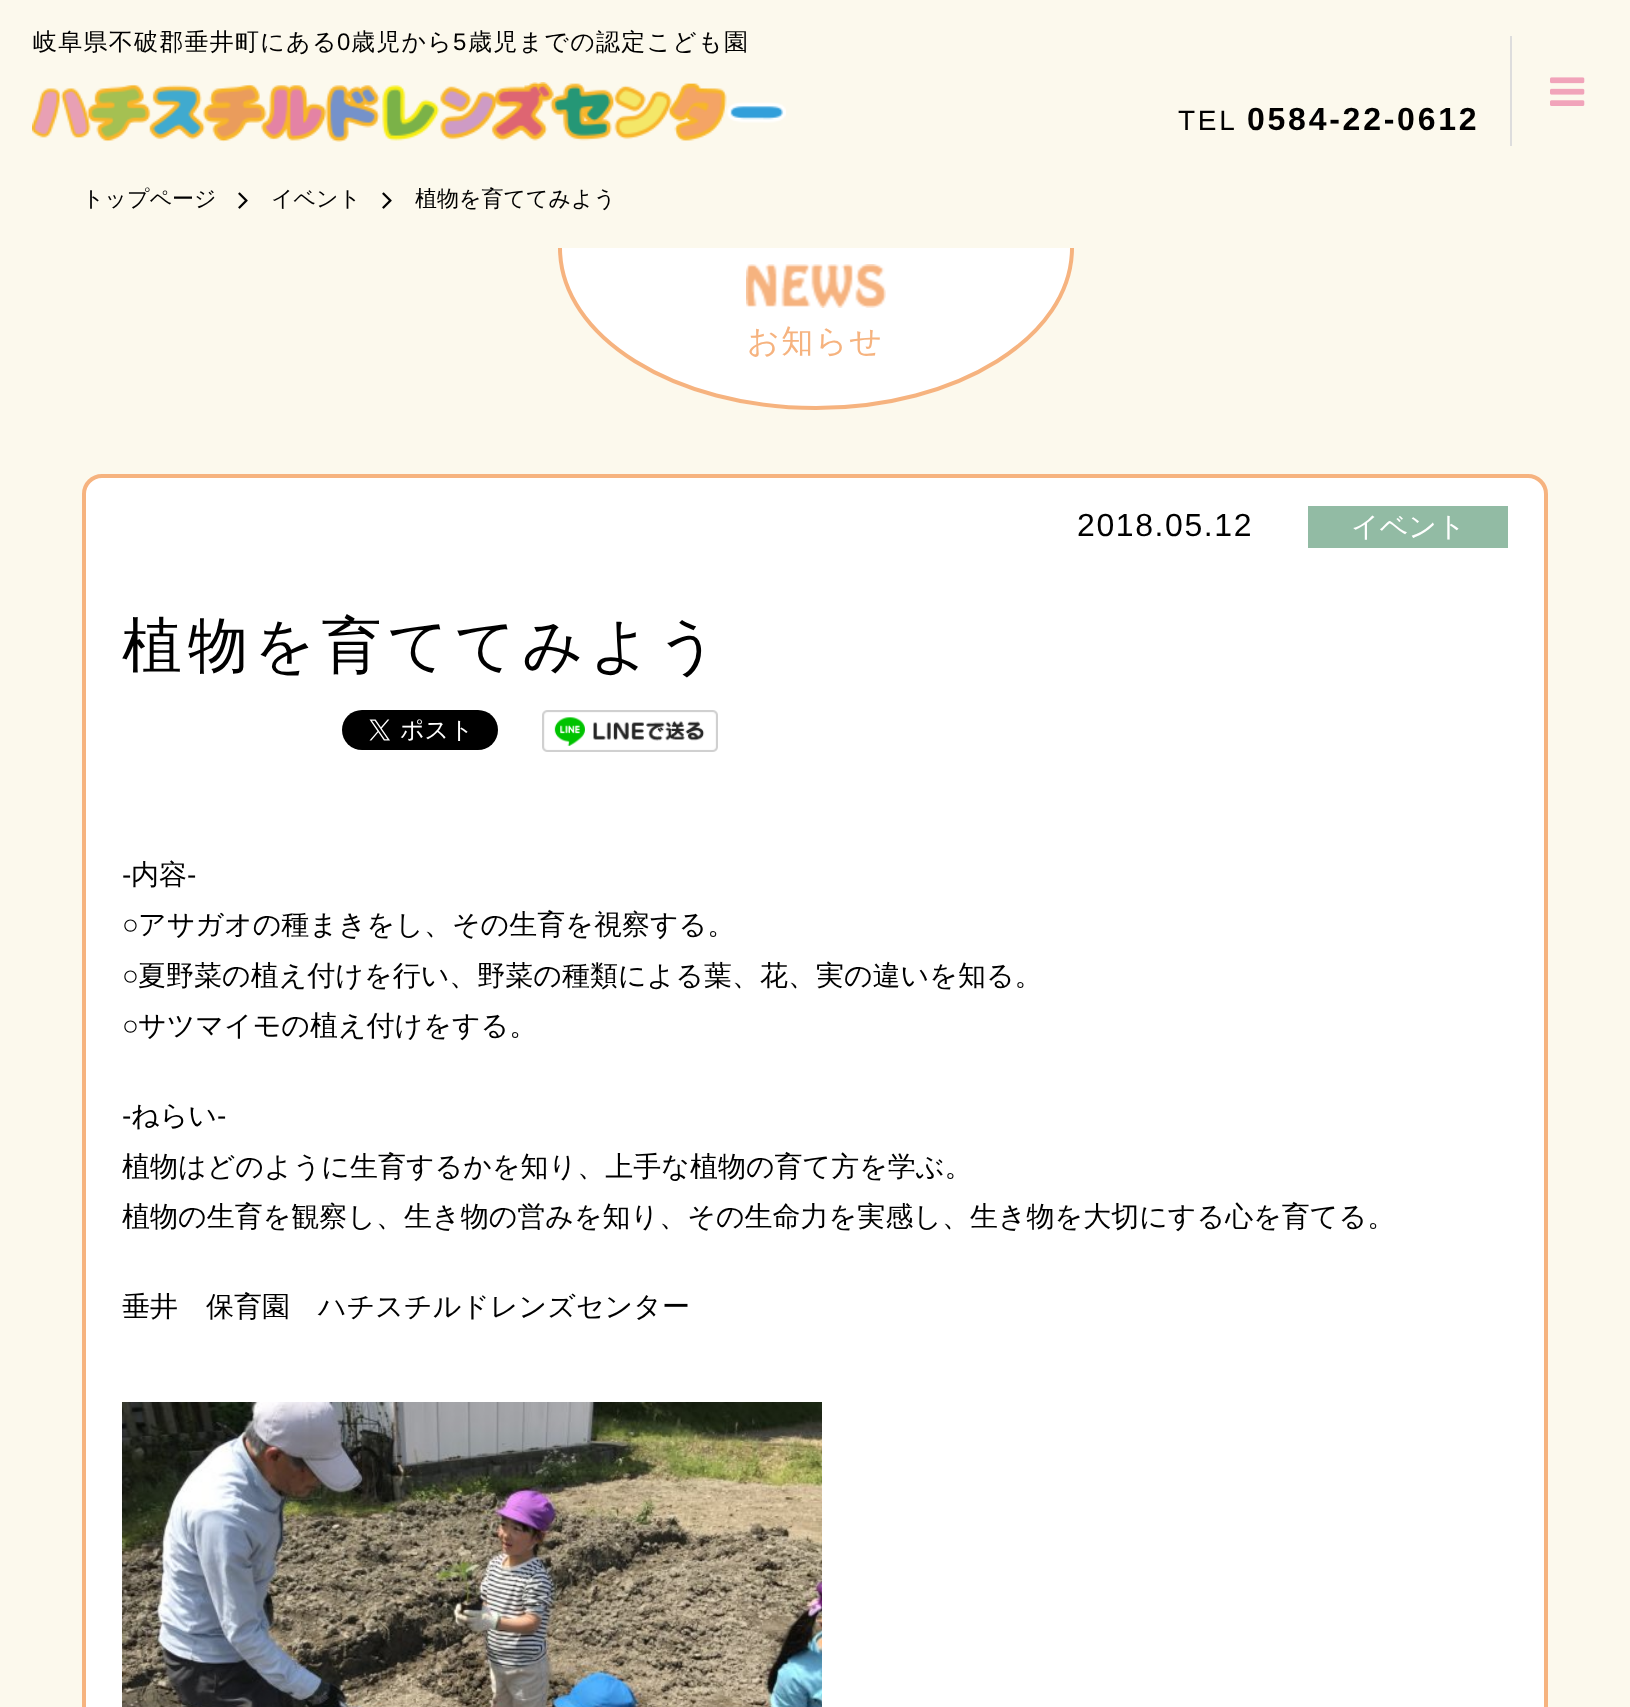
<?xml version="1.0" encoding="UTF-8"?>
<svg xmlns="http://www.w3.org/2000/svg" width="1630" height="1707">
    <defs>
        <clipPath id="clip1"><rect x="0" y="248" width="1630" height="226"/></clipPath>
    </defs>
    <rect width="100%" height="100%" fill="#FCF9ED"/>
    <text x="33" y="50" font-family="WenQuanYi Zen Hei" font-size="24" font-weight="500" letter-spacing="1.25" fill="#000000">岐阜県不破郡垂井町にある</text>
    <text x="337" y="50" font-family="Liberation Sans" font-size="24" letter-spacing="1.25" fill="#000000">0</text>
    <text x="351" y="50" font-family="WenQuanYi Zen Hei" font-size="24" font-weight="500" letter-spacing="1.25" fill="#000000">歳児から</text>
    <text x="453" y="50" font-family="Liberation Sans" font-size="24" letter-spacing="1.25" fill="#000000">5</text>
    <text x="468" y="50" font-family="WenQuanYi Zen Hei" font-size="24" font-weight="500" letter-spacing="1.25" fill="#000000">歳児までの認定こども園</text>
    <image x="32" y="82" width="754" height="60" href="img_01.png"/>
    <text x="1178" y="130" font-family="Liberation Sans" font-size="28" letter-spacing="2.75" fill="#000000">TEL</text>
    <text x="1247" y="130" font-family="Liberation Sans" font-size="32" font-weight="700" letter-spacing="2.75" fill="#000000">0584-22-0612</text>
    <rect x="1510" y="36" width="2" height="110" fill="#DDDDDD"/>
    <image x="1550" y="77" width="35" height="29" href="img_02.png"/>
    <text x="82" y="206" font-family="WenQuanYi Zen Hei" font-size="22" font-weight="500" fill="#000000">トップページ</text>
    <image x="238" y="192" width="10" height="17" href="img_03.png"/>
    <text x="271" y="206" font-family="WenQuanYi Zen Hei" font-size="22" font-weight="500" fill="#000000">イベント</text>
    <image x="382" y="192" width="10" height="17" href="img_03.png"/>
    <text x="415" y="206" font-family="WenQuanYi Zen Hei" font-size="22" font-weight="500" fill="#000000">植物を育ててみよう</text>
    <g clip-path="url(#clip1)">
        <ellipse cx="816" cy="248" rx="258" ry="162" fill="#FFFFFF"/>
        <path d="M 816 88 C 957.5 88 1072 159.5 1072 248 C 1072 336.5 957.5 408 816 408 C 674.5 408 560 336.5 560 248 C 560 159.5 674.5 88 816 88 Z" fill="none" stroke="#F6B37F" stroke-width="4"/>
    </g>
    <image x="746" y="264" width="140" height="44" href="img_04.png"/>
    <text x="747" y="352" font-family="WenQuanYi Zen Hei" font-size="32" font-weight="500" letter-spacing="1.6" fill="#F6B37F">お知らせ</text>
    <rect x="84" y="476" width="1462" height="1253" rx="18" fill="#FFFFFF" stroke="#F6B37F" stroke-width="4"/>
    <text x="1077" y="536" font-family="Liberation Sans" font-size="32" letter-spacing="1.6" fill="#000000">2018.05.12</text>
    <rect x="1308" y="506" width="200" height="42" fill="#92BBA4"/>
    <text x="1351" y="536" font-family="WenQuanYi Zen Hei" font-size="28" font-weight="500" fill="#FFFFFF">イベント</text>
    <text x="122" y="666" font-family="WenQuanYi Zen Hei" font-size="60" font-weight="500" letter-spacing="6" fill="#000000">植物を育ててみよう</text>
    <image x="342" y="710" width="156" height="40" href="img_05.png"/>
    <image x="542" y="710" width="176" height="42" href="img_06.png"/>
    <text x="122" y="884" font-family="Liberation Sans" font-size="28" fill="#000000">-</text>
    <text x="131" y="884" font-family="WenQuanYi Zen Hei" font-size="28" font-weight="500" fill="#000000">内容</text>
    <text x="187" y="884" font-family="Liberation Sans" font-size="28" fill="#000000">-</text>
    <text x="122" y="934" font-family="Liberation Sans" font-size="28" fill="#000000">○</text>
    <text x="138" y="934" font-family="WenQuanYi Zen Hei" font-size="28" font-weight="500" fill="#000000">アサガオの種まきをし、その生育を視察する。</text>
    <text x="122" y="985" font-family="Liberation Sans" font-size="28" fill="#000000">○</text>
    <text x="138" y="985" font-family="WenQuanYi Zen Hei" font-size="28" font-weight="500" fill="#000000">夏野菜の植え付けを行い、野菜の種類による葉、花、実の違いを知る。</text>
    <text x="122" y="1035" font-family="Liberation Sans" font-size="28" fill="#000000">○</text>
    <text x="138" y="1035" font-family="WenQuanYi Zen Hei" font-size="28" font-weight="500" fill="#000000">サツマイモの植え付けをする。</text>
    <text x="122" y="1125" font-family="Liberation Sans" font-size="28" fill="#000000">-</text>
    <text x="131" y="1125" font-family="WenQuanYi Zen Hei" font-size="28" font-weight="500" fill="#000000">ねらい</text>
    <text x="217" y="1125" font-family="Liberation Sans" font-size="28" fill="#000000">-</text>
    <text font-family="WenQuanYi Zen Hei" font-size="28" font-weight="500" fill="#000000">
        <tspan x="122" y="1176">植物はどのように生育するかを知り、上手な植物の育て方を学ぶ。</tspan>
        <tspan x="122" y="1226">植物の生育を観察し、生き物の営みを知り、その生命力を実感し、生き物を大切にする心を育てる。</tspan>
    </text>
    <text x="122" y="1316" font-family="WenQuanYi Zen Hei" font-size="28" font-weight="500" fill="#000000">垂井　保育園　ハチスチルドレンズセンター</text>
    <image x="122" y="1402" width="700" height="305" href="img_07.png"/>
</svg>
